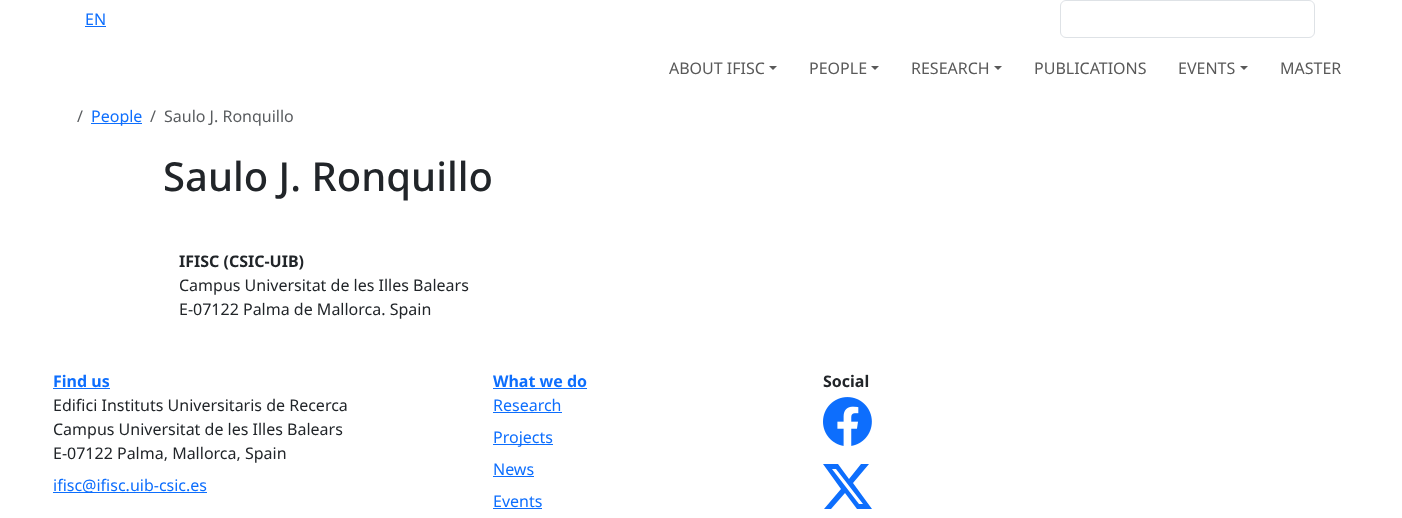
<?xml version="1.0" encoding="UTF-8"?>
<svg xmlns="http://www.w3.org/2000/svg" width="1402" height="518">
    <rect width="100%" height="100%" fill="#FFFFFF"/>
    <text x="85" y="25" font-family="Noto Sans" font-size="16" fill="#0D6EFD">EN</text>
    <rect x="85" y="26" width="21" height="1" fill="#0D6EFD"/>
    <rect x="1060.5" y="0.5" width="254" height="37" rx="5.5" fill="none" stroke="#DEE2E6"/>
    <text x="669" y="74" font-family="Noto Sans" font-size="16" fill="#595959">ABOUT IFISC</text>
    <path d="M 769 66 H 777 L 773 70 Z" fill="#595959"/>
    <text x="809" y="74" font-family="Noto Sans" font-size="16" fill="#595959">PEOPLE</text>
    <path d="M 871 66 H 879 L 875 70 Z" fill="#595959"/>
    <text x="911" y="74" font-family="Noto Sans" font-size="16" fill="#595959">RESEARCH</text>
    <path d="M 994 66 H 1002 L 998 70 Z" fill="#595959"/>
    <text x="1034" y="74" font-family="Noto Sans" font-size="16" fill="#595959">PUBLICATIONS</text>
    <text x="1178" y="74" font-family="Noto Sans" font-size="16" fill="#595959">EVENTS</text>
    <path d="M 1240 66 H 1248 L 1244 70 Z" fill="#595959"/>
    <text x="1280" y="74" font-family="Noto Sans" font-size="16" fill="#595959">MASTER</text>
    <text x="77" y="122" font-family="Noto Sans" font-size="16" fill="#595C5F">/</text>
    <rect x="91" y="123" width="51" height="1" fill="#0D6EFD"/>
    <text x="91" y="122" font-family="Noto Sans" font-size="16" fill="#0D6EFD">People</text>
    <text x="150" y="122" font-family="Noto Sans" font-size="16" fill="#595C5F">/</text>
    <text x="164" y="122" font-family="Noto Sans" font-size="16" fill="#595C5F">Saulo J. Ronquillo</text>
    <text x="163" y="191" font-family="Noto Sans" font-size="40" font-weight="500" fill="#212529">Saulo J. Ronquillo</text>
    <text x="179" y="267" font-family="Noto Sans" font-size="16" font-weight="700" fill="#212529">IFISC (CSIC-UIB)</text>
    <text font-family="Noto Sans" font-size="16" fill="#212529">
        <tspan x="179" y="291">Campus Universitat de les Illes Balears</tspan>
        <tspan x="179" y="315">E-07122 Palma de Mallorca. Spain</tspan>
    </text>
    <text x="53" y="387" font-family="Noto Sans" font-size="16" font-weight="700" fill="#0D6EFD">Find us</text>
    <rect x="53" y="388" width="57" height="1" fill="#0D6EFD"/>
    <text font-family="Noto Sans" font-size="16" fill="#212529">
        <tspan x="53" y="411">Edifici Instituts Universitaris de Recerca</tspan>
        <tspan x="53" y="435">Campus Universitat de les Illes Balears</tspan>
        <tspan x="53" y="459">E-07122 Palma, Mallorca, Spain</tspan>
    </text>
    <rect x="53" y="492" width="154" height="1" fill="#0D6EFD"/>
    <text x="53" y="491" font-family="Noto Sans" font-size="16" fill="#0D6EFD">ifisc@ifisc.uib-csic.es</text>
    <text x="493" y="387" font-family="Noto Sans" font-size="16" font-weight="700" fill="#0D6EFD">What we do</text>
    <rect x="493" y="388" width="94" height="1" fill="#0D6EFD"/>
    <text x="493" y="411" font-family="Noto Sans" font-size="16" fill="#0D6EFD">Research</text>
    <rect x="493" y="412" width="69" height="1" fill="#0D6EFD"/>
    <rect x="493" y="444" width="60" height="1" fill="#0D6EFD"/>
    <text x="493" y="443" font-family="Noto Sans" font-size="16" fill="#0D6EFD">Projects</text>
    <text x="493" y="475" font-family="Noto Sans" font-size="16" fill="#0D6EFD">News</text>
    <rect x="493" y="476" width="41" height="1" fill="#0D6EFD"/>
    <text x="493" y="507" font-family="Noto Sans" font-size="16" fill="#0D6EFD">Events</text>
    <rect x="493" y="508" width="49" height="1" fill="#0D6EFD"/>
    <text x="823" y="387" font-family="Noto Sans" font-size="16" font-weight="700" fill="#212529">Social</text>
    <image x="823" y="397" width="49" height="49" href="img_01.png"/>
    <path d="M 861 464 H 869 L 853 483 L 872 509 H 857 L 845 493 L 831 509 H 824 L 841 489 L 823 464 H 838 L 849 479 Z M 859 504 H 863 L 836 469 H 832 Z" fill="#0D6EFD"/>
</svg>
